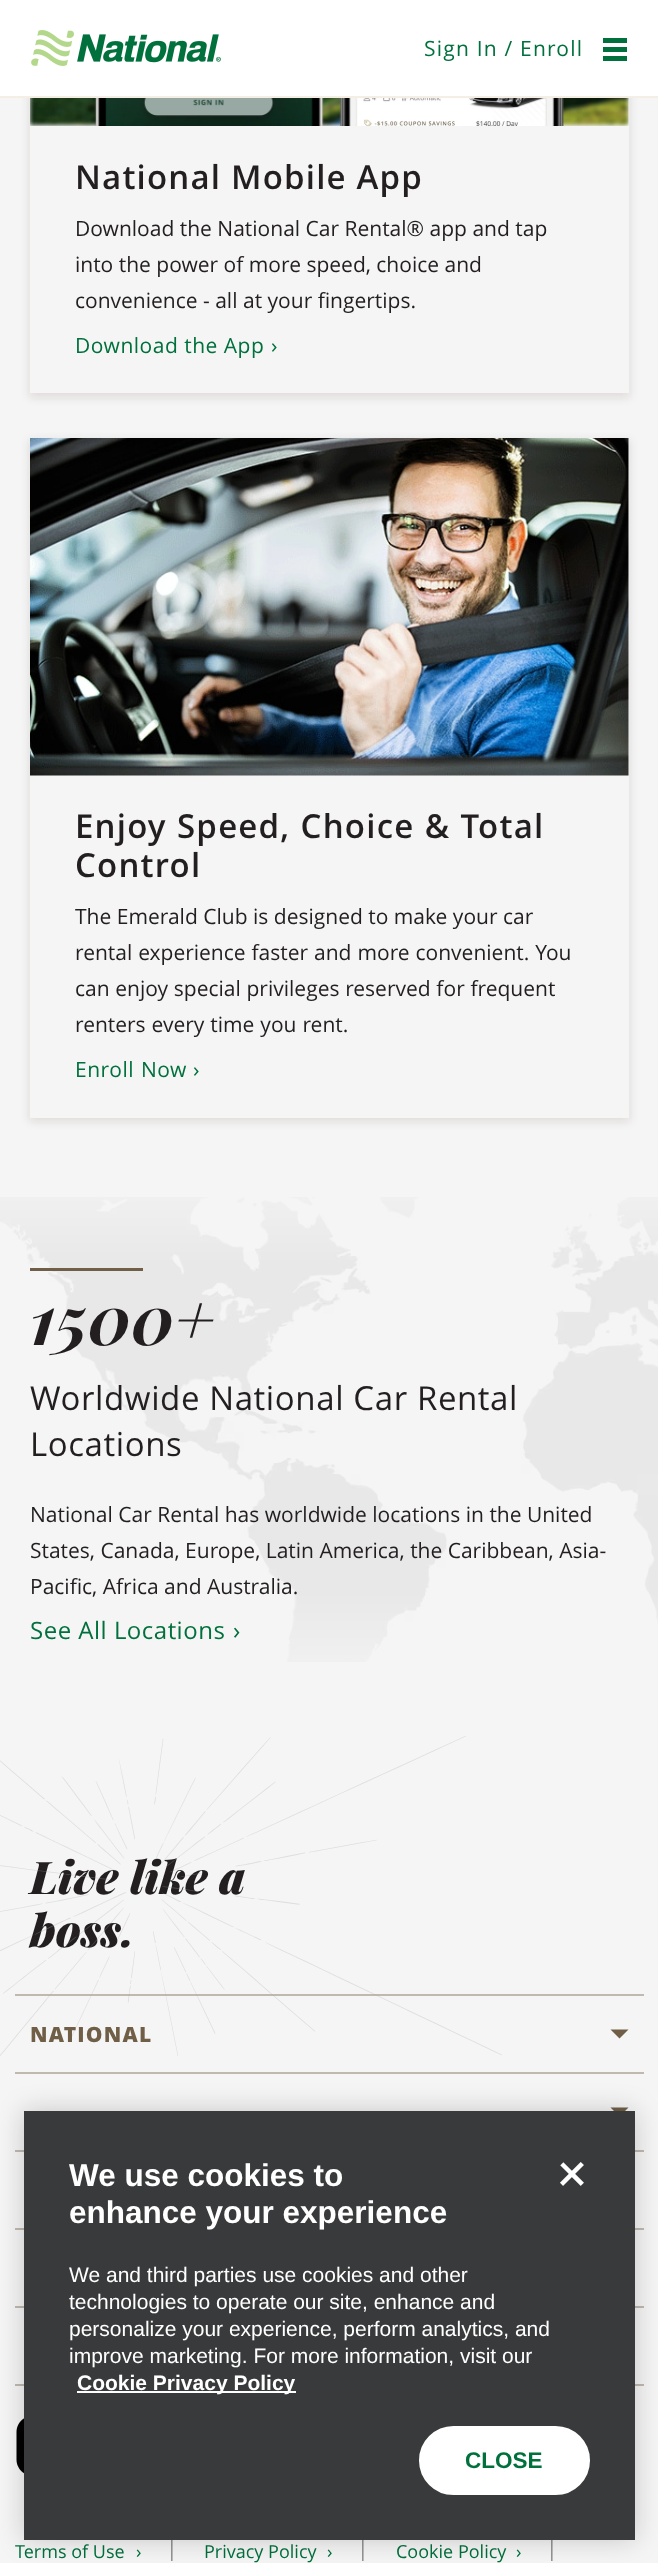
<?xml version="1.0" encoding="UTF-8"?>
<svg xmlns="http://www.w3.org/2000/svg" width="658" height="2563">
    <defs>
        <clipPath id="clip1"><path d="M 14 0 H 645 V 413 H 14 Z M 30 -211 H 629 V 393 H 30 Z" clip-rule="evenodd"/></clipPath>
        <filter id="blur1" x="-50%" y="-200%" width="200%" height="500%"><feGaussianBlur stdDeviation="4.5"/></filter>
        <clipPath id="clip2"><path d="M 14 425 H 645 V 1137 H 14 Z M 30 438 H 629 V 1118 H 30 Z" clip-rule="evenodd"/></clipPath>
        <filter id="blur2" x="-50%" y="-200%" width="200%" height="500%"><feGaussianBlur stdDeviation="13.5"/></filter>
    </defs>
    <rect width="100%" height="100%" fill="#F5F5F5"/>
    <g clip-path="url(#clip1)">
        <rect x="29" y="-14" width="601" height="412" fill="#231F20" fill-opacity="0.1" filter="url(#blur1)"/>
    </g>
    <rect x="0" y="0" width="658" height="96" fill="#FFFFFF"/>
    <rect x="0" y="96" width="658" height="2" fill="#F5EEE4"/>
    <image x="31" y="30" width="190" height="36" href="img_01.png"/>
    <text x="424" y="56" font-family="Open Sans" font-size="21" letter-spacing="1.2" fill="#00703C">Sign In / Enroll</text>
    <rect x="603" y="38" width="24" height="5" fill="#00703C"/>
    <rect x="603" y="47" width="24" height="5" fill="#00703C"/>
    <rect x="603" y="56" width="24" height="5" fill="#00703C"/>
    <image x="30" y="98" width="599" height="28" href="img_02.png"/>
    <text x="75" y="189" font-family="Open Sans" font-size="33" font-weight="600" letter-spacing="1.2" fill="#231F20">National Mobile App</text>
    <text font-family="Open Sans" font-size="21" fill="#231F20">
        <tspan x="75" y="236">Download the National Car Rental® app and tap</tspan>
        <tspan x="75" y="272">into the power of more speed, choice and</tspan>
        <tspan x="75" y="308">convenience - all at your fingertips.</tspan>
    </text>
    <text x="75" y="353" font-family="Open Sans" font-size="21" letter-spacing="0.5" fill="#00703C">Download the App</text>
    <text x="271" y="353" font-family="Open Sans" font-size="21" letter-spacing="0.5" fill="#00703C">›</text>
    <g clip-path="url(#clip2)">
        <rect x="29" y="440" width="601" height="682" fill="#231F20" fill-opacity="0.1" filter="url(#blur1)"/>
    </g>
    <image x="30" y="438" width="599" height="338" href="img_03.png"/>
    <text font-family="Open Sans" font-size="33" font-weight="600" letter-spacing="1.2" fill="#231F20">
        <tspan x="75" y="838" word-spacing="0.5">Enjoy Speed, Choice &amp; Total</tspan>
        <tspan x="75" y="877">Control</tspan>
    </text>
    <text font-family="Open Sans" font-size="21" fill="#231F20">
        <tspan x="75" y="924">The Emerald Club is designed to make your car</tspan>
        <tspan x="75" y="960" word-spacing="0.5">rental experience faster and more convenient. You</tspan>
        <tspan x="75" y="996" word-spacing="0.25">can enjoy special privileges reserved for frequent</tspan>
        <tspan x="75" y="1032" word-spacing="0.5">renters every time you rent.</tspan>
    </text>
    <text x="75" y="1077" word-spacing="1" font-family="Open Sans" font-size="21" letter-spacing="0.5" fill="#00703C">Enroll Now</text>
    <text x="193" y="1077" font-family="Open Sans" font-size="21" letter-spacing="0.5" fill="#00703C">›</text>
    <image x="0" y="1197" width="658" height="465" href="img_04.png"/>
    <rect x="30" y="1268" width="113" height="3" fill="#705F46"/>
    <text x="30" y="1345" font-family="Playfair Display" font-size="69" font-weight="700" font-style="italic" letter-spacing="0.5" fill="#231F20">1500+</text>
    <text font-family="Open Sans" font-size="33" letter-spacing="0.6" fill="#231F20">
        <tspan x="30" y="1410">Worldwide National Car Rental</tspan>
        <tspan x="30" y="1456">Locations</tspan>
    </text>
    <text font-family="Open Sans" font-size="21" fill="#231F20">
        <tspan x="30" y="1522">National Car Rental has worldwide locations in the United</tspan>
        <tspan x="30" y="1558">States, Canada, Europe, Latin America, the Caribbean, Asia-</tspan>
        <tspan x="30" y="1594">Pacific, Africa and Australia.</tspan>
    </text>
    <text x="30" y="1639" font-family="Open Sans" font-size="24" letter-spacing="0.5" fill="#00703C">See All Locations</text>
    <text x="233" y="1639" font-family="Open Sans" font-size="24" letter-spacing="0.5" fill="#00703C">›</text>
    <text font-family="Playfair Display" font-size="45" font-weight="900" font-style="italic" fill="#231F20">
        <tspan x="30" y="1894">Live like a</tspan>
        <tspan x="30" y="1947">boss.</tspan>
    </text>
    <rect x="15" y="1994" width="629" height="2" fill="#C0B9AF"/>
    <image x="0" y="1736" width="502" height="320" href="img_05.png"/>
    <rect x="15" y="2072" width="629" height="2" fill="#C0B9AF"/>
    <text x="30" y="2042" font-family="Open Sans" font-size="21" font-weight="800" letter-spacing="1.2" fill="#705F46">NATIONAL</text>
    <path d="M 610.5 2029.5 H 628.5 L 619.5 2038.5 Z" fill="#705F46"/>
    <rect x="15" y="2150" width="629" height="2" fill="#C0B9AF"/>
    <path d="M 610.5 2107.5 H 628.5 L 619.5 2116.5 Z" fill="#705F46"/>
    <rect x="15" y="2228" width="629" height="2" fill="#C0B9AF"/>
    <rect x="15" y="2306" width="629" height="2" fill="#C0B9AF"/>
    <rect x="15" y="2384" width="629" height="2" fill="#C0B9AF"/>
    <image x="16" y="2418" width="8" height="56" href="img_06.png"/>
    <text x="15" y="2558" font-family="Open Sans" font-size="18" fill="#00703C">Terms of Use</text>
    <text x="136" y="2558" font-family="Open Sans" font-size="18" fill="#00703C">›</text>
    <text x="166" y="2556" font-family="Open Sans" font-size="21" fill="#8E8E8E">|</text>
    <text x="204" y="2558" font-family="Open Sans" font-size="18" fill="#00703C">Privacy Policy</text>
    <text x="327" y="2558" font-family="Open Sans" font-size="18" fill="#00703C">›</text>
    <text x="357" y="2556" font-family="Open Sans" font-size="21" fill="#8E8E8E">|</text>
    <text x="396" y="2558" font-family="Open Sans" font-size="18" fill="#00703C">Cookie Policy</text>
    <text x="516" y="2558" font-family="Open Sans" font-size="18" fill="#00703C">›</text>
    <text x="546" y="2556" font-family="Open Sans" font-size="21" fill="#8E8E8E">|</text>
    <rect x="24" y="2111" width="611" height="429" fill="#000000" fill-opacity="0.2" filter="url(#blur2)"/>
    <rect x="24" y="2111" width="611" height="429" fill="#393A3B"/>
    <text font-family="Liberation Sans" font-size="31.5" font-weight="700" fill="#FFFFFF">
        <tspan x="69" y="2186">We use cookies to</tspan>
        <tspan x="69" y="2223">enhance your experience</tspan>
    </text>
    <text font-family="Liberation Sans" font-size="21" fill="#FFFFFF">
        <tspan x="69" y="2282">We and third parties use cookies and other</tspan>
        <tspan x="69" y="2309">technologies to operate our site, enhance and</tspan>
        <tspan x="69" y="2336">personalize your experience, perform analytics, and</tspan>
        <tspan x="69" y="2363">improve marketing. For more information, visit our</tspan>
    </text>
    <rect x="77" y="2391" width="219" height="2" fill="#FFFFFF"/>
    <text x="77" y="2390" font-family="Liberation Sans" font-size="21" font-weight="700" fill="#FFFFFF">Cookie Privacy Policy</text>
    <image x="560" y="2162" width="24" height="24" href="img_07.png"/>
    <rect x="420" y="2427" width="169" height="67" rx="33.5" fill="#FFFFFF" stroke="#FFFFFF" stroke-width="2"/>
    <text x="465" y="2468" font-family="Liberation Sans" font-size="22.5" font-weight="700" fill="#00703C">CLOSE</text>
</svg>
